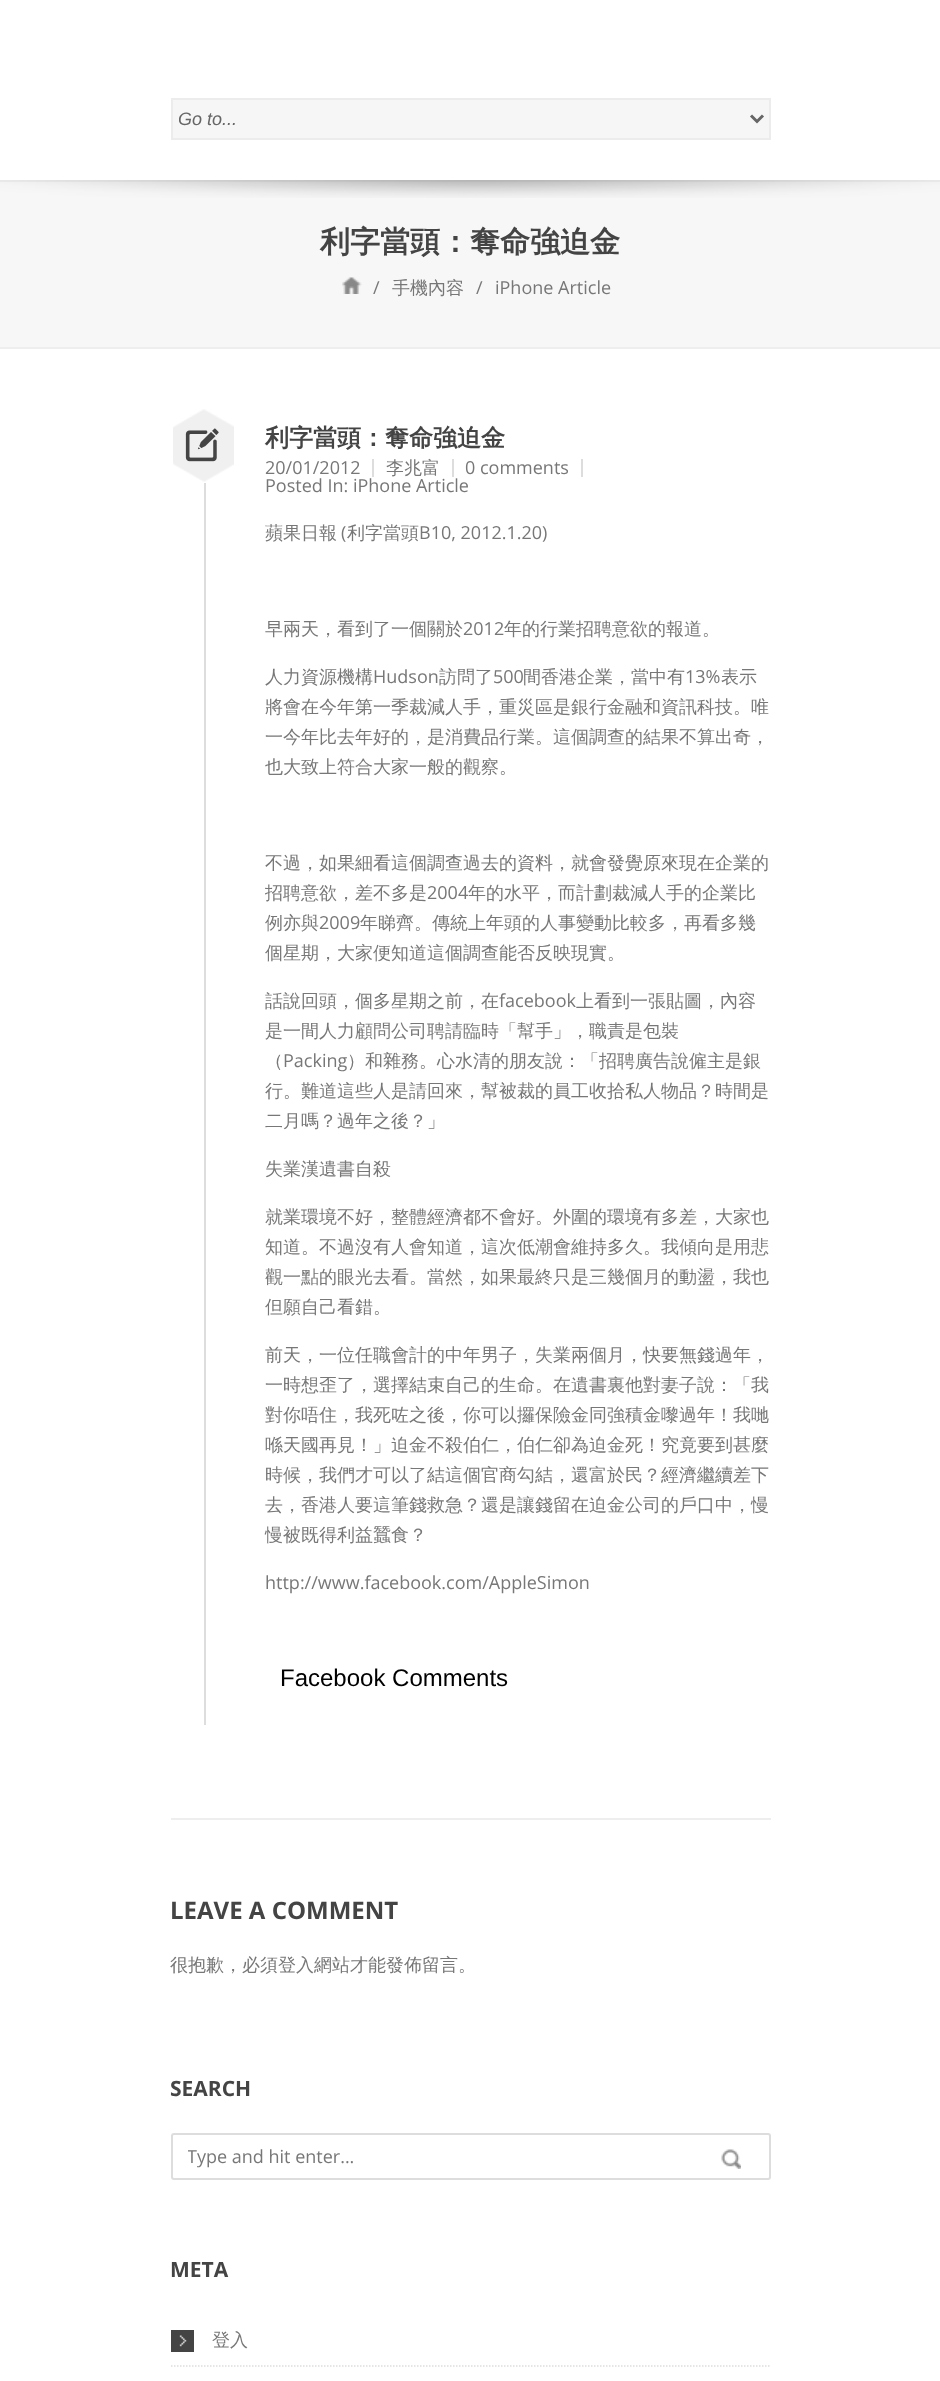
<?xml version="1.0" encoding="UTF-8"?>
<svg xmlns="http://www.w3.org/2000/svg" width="940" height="2381">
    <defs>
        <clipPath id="clip1"><rect x="179" y="107" width="567" height="24"/></clipPath>
        <clipPath id="clip2"><rect x="188" y="2144" width="567" height="25"/></clipPath>
    </defs>
    <rect width="100%" height="100%" fill="#FFFFFF"/>
    <rect x="172" y="99" width="598" height="40" fill="#F6F6F6" stroke="#ECECEC" stroke-width="2"/>
    <path d="M 751 115.5 L 757 121.5 L 763 115.5" fill="none" stroke="#666666" stroke-width="3"/>
    <g clip-path="url(#clip1)">
        <text x="178" y="125" font-family="Liberation Sans" font-size="18" font-style="italic" fill="#666666">Go to...</text>
    </g>
    <rect x="0" y="182" width="940" height="165" fill="#F7F7F7"/>
    <rect x="0" y="180" width="940" height="2" fill="#EEEEEE"/>
    <image x="0" y="180" width="940" height="18" href="img_01.png"/>
    <rect x="0" y="347" width="940" height="2" fill="#EEEEEE"/>
    <text x="320" y="252" font-family="WenQuanYi Zen Hei" font-size="30" font-weight="700" fill="#444444">利字當頭：奪命強迫金</text>
    <image x="342" y="277" width="20" height="17" href="img_02.png"/>
    <text x="373" y="294" font-family="Open Sans" font-size="18" fill="#777777">/</text>
    <text x="392" y="294" font-family="WenQuanYi Zen Hei" font-size="18" font-weight="500" fill="#777777">手機內容</text>
    <text x="476" y="294" font-family="Open Sans" font-size="18" fill="#777777">/</text>
    <text x="495" y="294" font-family="Open Sans" font-size="18" fill="#777777">iPhone Article</text>
    <rect x="171" y="1818" width="600" height="2" fill="#EEEEEE"/>
    <rect x="204" y="483" width="2" height="1242" fill="#DDDDDD"/>
    <rect x="173" y="408" width="61" height="75" fill="#F0F0F0"/>
    <image x="173" y="408" width="61" height="75" href="img_03.png"/>
    <image x="185" y="428" width="34" height="34" href="img_04.png"/>
    <text x="265" y="446" font-family="WenQuanYi Zen Hei" font-size="24" font-weight="700" fill="#444444">利字當頭：奪命強迫金</text>
    <rect x="372" y="459" width="2" height="18" fill="#DDDDDD"/>
    <text x="265" y="474" font-family="Open Sans" font-size="18" fill="#777777">20/01/2012</text>
    <rect x="452" y="459" width="2" height="18" fill="#DDDDDD"/>
    <text x="386" y="474" font-family="WenQuanYi Zen Hei" font-size="18" font-weight="500" fill="#777777">李兆富</text>
    <rect x="581" y="459" width="2" height="18" fill="#DDDDDD"/>
    <text x="465" y="474" font-family="Open Sans" font-size="18" fill="#777777">0 comments</text>
    <text x="265" y="492" font-family="Open Sans" font-size="18" fill="#777777">Posted In: iPhone Article</text>
    <text x="265" y="539" font-family="WenQuanYi Zen Hei" font-size="18" font-weight="500" fill="#777777">蘋果日報</text>
    <text x="341" y="539" font-family="Open Sans" font-size="18" fill="#777777">(</text>
    <text x="347" y="539" font-family="WenQuanYi Zen Hei" font-size="18" font-weight="500" fill="#777777">利字當頭</text>
    <text x="419" y="539" font-family="Open Sans" font-size="18" fill="#777777">B10, 2012.1.20)</text>
    <text x="265" y="635" font-family="WenQuanYi Zen Hei" font-size="18" font-weight="500" fill="#777777">早兩天，看到了一個關於</text>
    <text x="463" y="635" font-family="Open Sans" font-size="18" fill="#777777">2012</text>
    <text x="504" y="635" font-family="WenQuanYi Zen Hei" font-size="18" font-weight="500" fill="#777777">年的行業招聘意欲的報道。</text>
    <text x="265" y="683" font-family="WenQuanYi Zen Hei" font-size="18" font-weight="500" fill="#777777">人力資源機構</text>
    <text x="373" y="683" font-family="Open Sans" font-size="18" fill="#777777">Hudson</text>
    <text x="439" y="683" font-family="WenQuanYi Zen Hei" font-size="18" font-weight="500" fill="#777777">訪問了</text>
    <text x="493" y="683" font-family="Open Sans" font-size="18" fill="#777777">500</text>
    <text x="523" y="683" font-family="WenQuanYi Zen Hei" font-size="18" font-weight="500" fill="#777777">間香港企業，當中有</text>
    <text x="685" y="683" font-family="Open Sans" font-size="18" fill="#777777">13%</text>
    <text x="721" y="683" font-family="WenQuanYi Zen Hei" font-size="18" font-weight="500" fill="#777777">表示</text>
    <text font-family="WenQuanYi Zen Hei" font-size="18" font-weight="500" fill="#777777">
        <tspan x="265" y="713">將會在今年第一季裁減人手，重災區是銀行金融和資訊科技。唯</tspan>
        <tspan x="265" y="743">一今年比去年好的，是消費品行業。這個調查的結果不算出奇，</tspan>
        <tspan x="265" y="773">也大致上符合大家一般的觀察。</tspan>
    </text>
    <text font-family="WenQuanYi Zen Hei" font-size="18" font-weight="500" fill="#777777">
        <tspan x="265" y="869">不過，如果細看這個調查過去的資料，就會發覺原來現在企業的</tspan>
        <tspan x="265" y="899">招聘意欲，差不多是</tspan>
    </text>
    <text x="427" y="899" font-family="Open Sans" font-size="18" fill="#777777">2004</text>
    <text x="468" y="899" font-family="WenQuanYi Zen Hei" font-size="18" font-weight="500" fill="#777777">年的水平，而計劃裁減人手的企業比</text>
    <text x="265" y="929" font-family="WenQuanYi Zen Hei" font-size="18" font-weight="500" fill="#777777">例亦與</text>
    <text x="319" y="929" font-family="Open Sans" font-size="18" fill="#777777">2009</text>
    <text x="360" y="929" font-family="WenQuanYi Zen Hei" font-size="18" font-weight="500" fill="#777777">年睇齊。傳統上年頭的人事變動比較多，再看多幾</text>
    <text x="265" y="959" font-family="WenQuanYi Zen Hei" font-size="18" font-weight="500" fill="#777777">個星期，大家便知道這個調查能否反映現實。</text>
    <text x="265" y="1007" font-family="WenQuanYi Zen Hei" font-size="18" font-weight="500" fill="#777777">話說回頭，個多星期之前，在</text>
    <text x="499" y="1007" font-family="Open Sans" font-size="18" fill="#777777">facebook</text>
    <text x="576" y="1007" font-family="WenQuanYi Zen Hei" font-size="18" font-weight="500" fill="#777777">上看到一張貼圖，內容</text>
    <text font-family="WenQuanYi Zen Hei" font-size="18" font-weight="500" fill="#777777">
        <tspan x="265" y="1037">是一間人力顧問公司聘請臨時「幫手」，職責是包裝</tspan>
        <tspan x="265" y="1067">（</tspan>
    </text>
    <text x="283" y="1067" font-family="Open Sans" font-size="18" fill="#777777">Packing</text>
    <text x="347" y="1067" font-family="WenQuanYi Zen Hei" font-size="18" font-weight="500" fill="#777777">）和雜務。心水清的朋友說：「招聘廣告說僱主是銀</text>
    <text font-family="WenQuanYi Zen Hei" font-size="18" font-weight="500" fill="#777777">
        <tspan x="265" y="1097">行。難道這些人是請回來，幫被裁的員工收拾私人物品？時間是</tspan>
        <tspan x="265" y="1127">二月嗎？過年之後？」</tspan>
    </text>
    <text x="265" y="1175" font-family="WenQuanYi Zen Hei" font-size="18" font-weight="500" fill="#777777">失業漢遺書自殺</text>
    <text font-family="WenQuanYi Zen Hei" font-size="18" font-weight="500" fill="#777777">
        <tspan x="265" y="1223">就業環境不好，整體經濟都不會好。外圍的環境有多差，大家也</tspan>
        <tspan x="265" y="1253">知道。不過沒有人會知道，這次低潮會維持多久。我傾向是用悲</tspan>
        <tspan x="265" y="1283">觀一點的眼光去看。當然，如果最終只是三幾個月的動盪，我也</tspan>
        <tspan x="265" y="1313">但願自己看錯。</tspan>
    </text>
    <text font-family="WenQuanYi Zen Hei" font-size="18" font-weight="500" fill="#777777">
        <tspan x="265" y="1361">前天，一位任職會計的中年男子，失業兩個月，快要無錢過年，</tspan>
        <tspan x="265" y="1391">一時想歪了，選擇結束自己的生命。在遺書裏他對妻子說：「我</tspan>
        <tspan x="265" y="1421">對你唔住，我死咗之後，你可以攞保險金同強積金嚟過年！我哋</tspan>
        <tspan x="265" y="1451">喺天國再見！」迫金不殺伯仁，伯仁卻為迫金死！究竟要到甚麼</tspan>
        <tspan x="265" y="1481">時候，我們才可以了結這個官商勾結，還富於民？經濟繼續差下</tspan>
        <tspan x="265" y="1511">去，香港人要這筆錢救急？還是讓錢留在迫金公司的戶口中，慢</tspan>
        <tspan x="265" y="1541">慢被既得利益蠶食？</tspan>
    </text>
    <text x="265" y="1589" font-family="Open Sans" font-size="18" fill="#777777">http://www.facebook.com/AppleSimon</text>
    <text x="280" y="1686" font-family="Liberation Sans" font-size="24" fill="#000000">Facebook Comments</text>
    <text x="170" y="1919" font-family="Open Sans" font-size="24" font-weight="700" fill="#444444">LEAVE A COMMENT</text>
    <text x="170" y="1971" font-family="WenQuanYi Zen Hei" font-size="18" font-weight="500" fill="#777777">很抱歉，必須登入網站才能發佈留言。</text>
    <text x="170" y="2096" font-family="Open Sans" font-size="21" font-weight="700" fill="#444444">SEARCH</text>
    <rect x="172" y="2134" width="598" height="45" rx="2" fill="none" stroke="#DDDDDD" stroke-width="2"/>
    <g clip-path="url(#clip2)">
        <text x="187" y="2163" font-family="Open Sans" font-size="18" fill="#777777">Type and hit enter...</text>
    </g>
    <image x="721" y="2149" width="20" height="20" href="img_05.png"/>
    <text x="170" y="2277" font-family="Open Sans" font-size="21" font-weight="700" fill="#444444">META</text>
    <path d="M 171 2366 H 771" fill="none" stroke="#DDDDDD" stroke-width="1.5" stroke-dasharray="1.5 1.5"/>
    <rect x="171" y="2330" width="23" height="22" fill="#444444"/>
    <image x="179" y="2335" width="8" height="12" href="img_06.png"/>
    <text x="212" y="2346" font-family="WenQuanYi Zen Hei" font-size="18" font-weight="500" fill="#777777">登入</text>
</svg>
